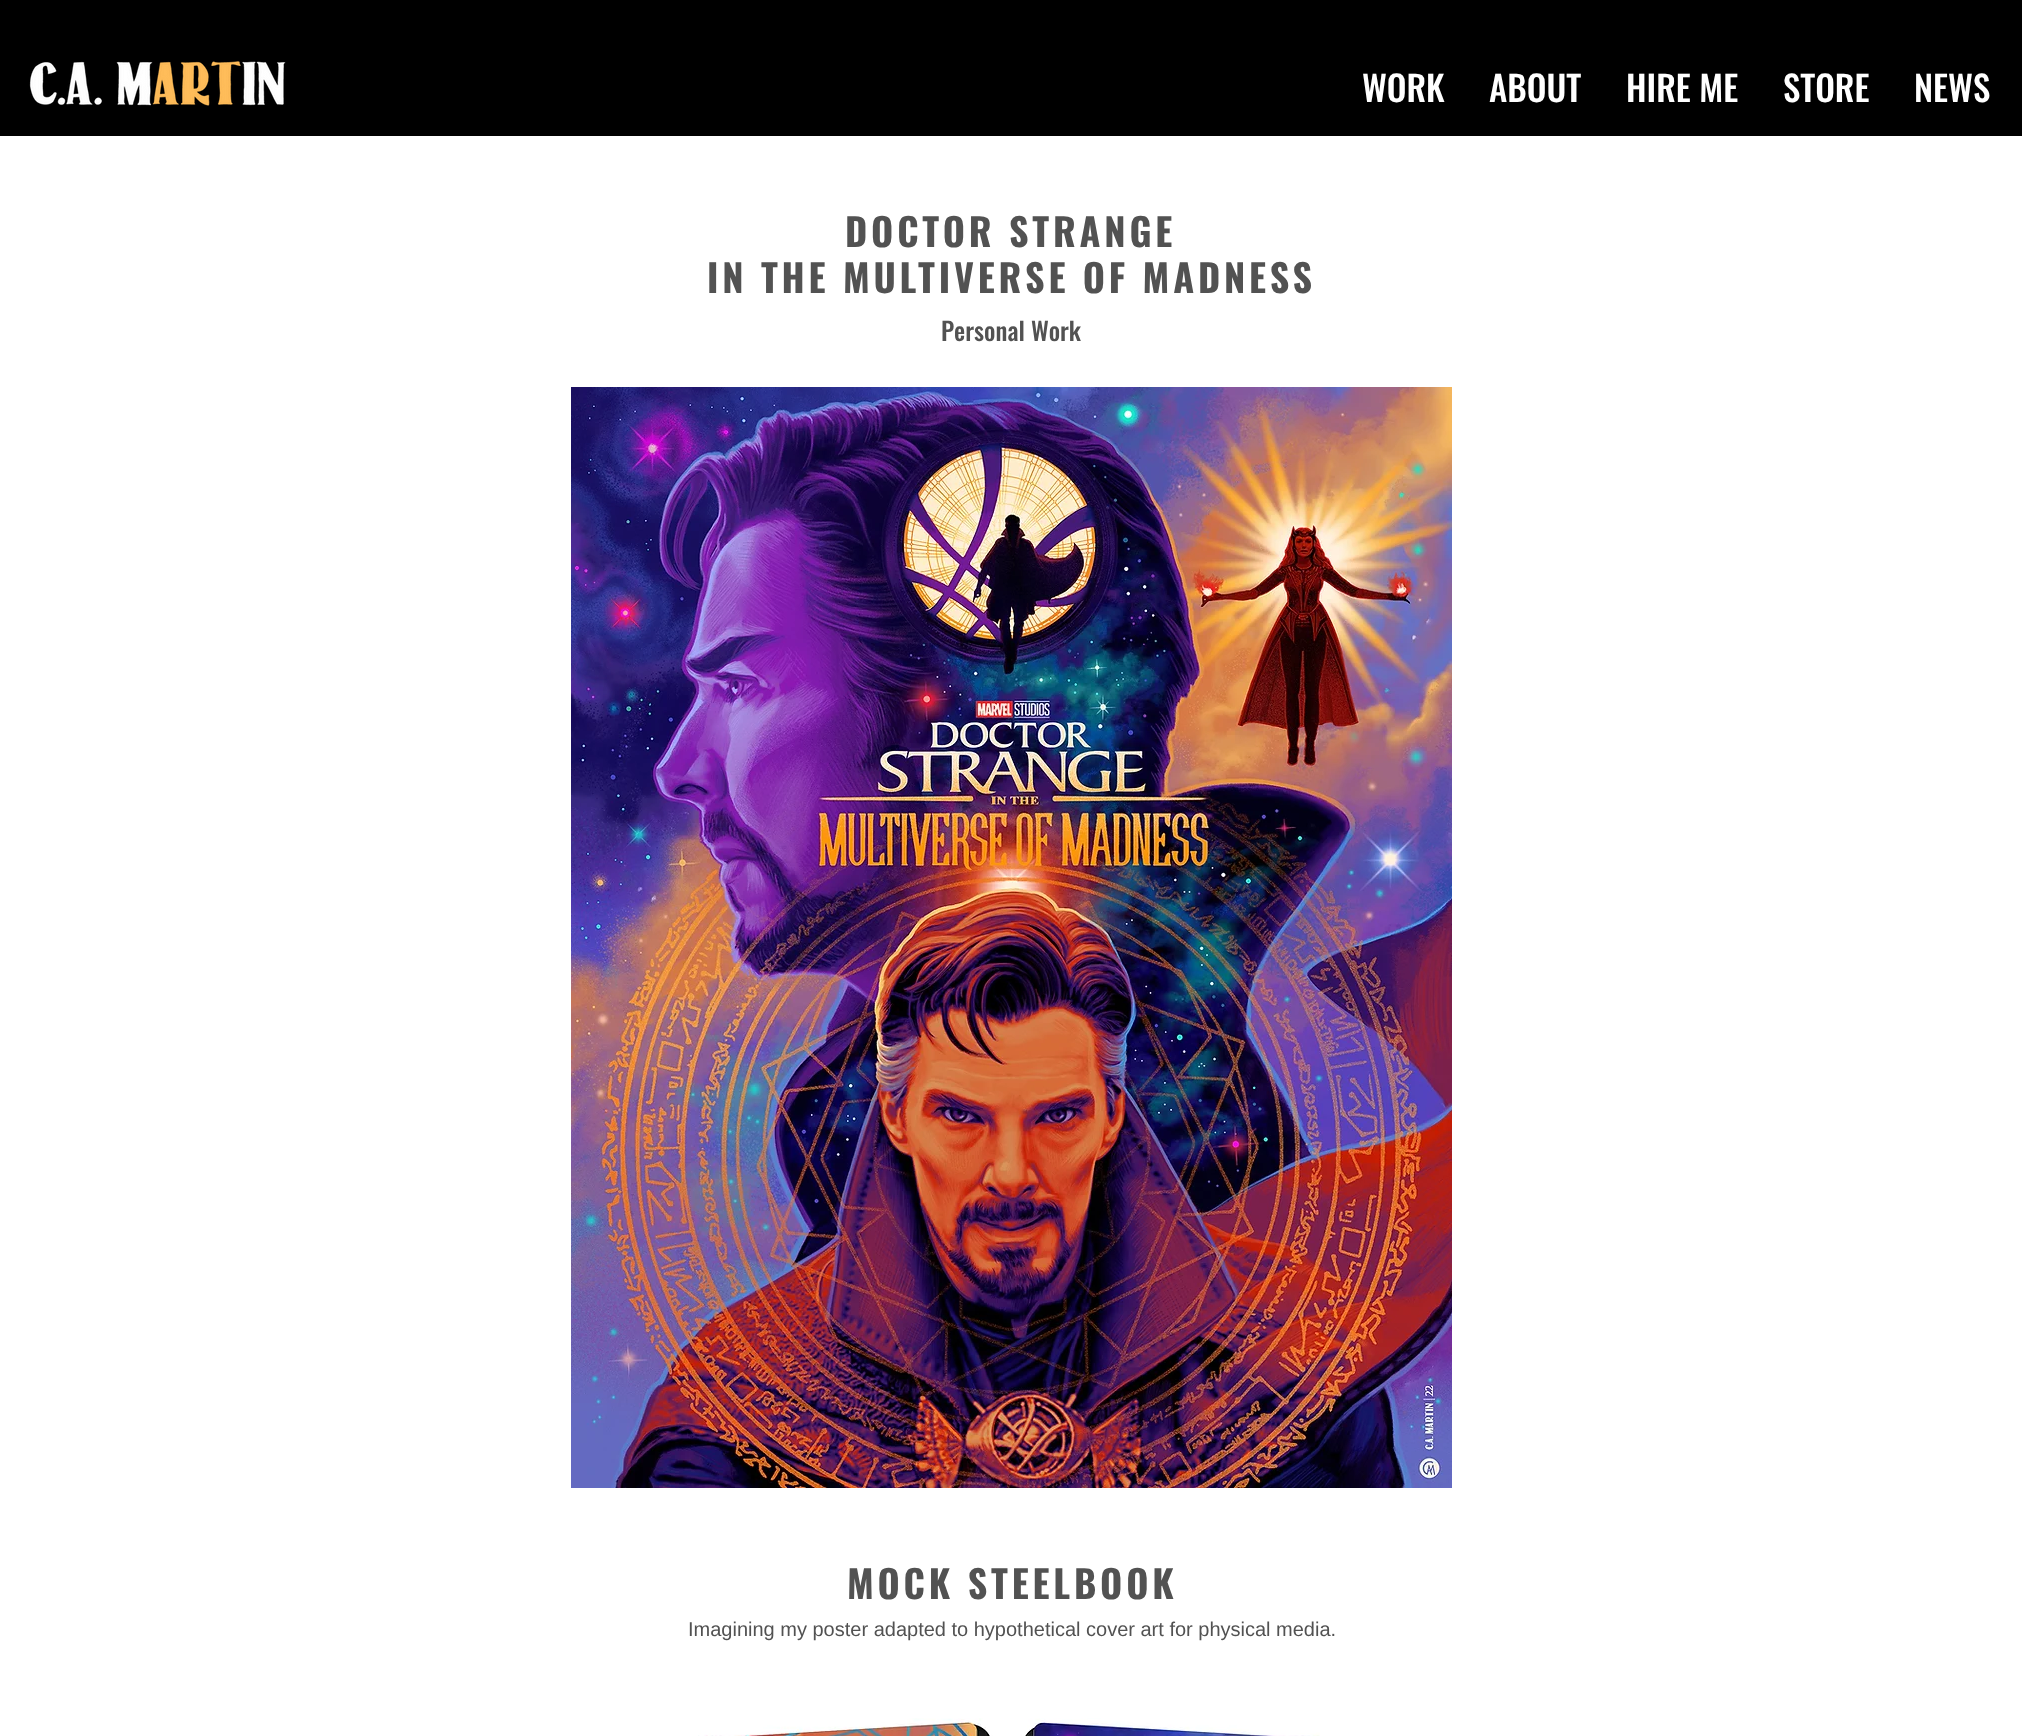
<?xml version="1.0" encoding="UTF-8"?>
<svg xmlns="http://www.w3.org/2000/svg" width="2022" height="1736">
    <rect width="100%" height="100%" fill="#FFFFFF"/>
    <rect x="0" y="0" width="2022" height="136" fill="#000000"/>
    <image x="29" y="61" width="257" height="45" href="img_01.png"/>
    <text x="1362" y="102" font-family="Oswald" font-size="35" font-weight="500" fill="#FFFFFF">WORK</text>
    <text x="1489" y="102" font-family="Oswald" font-size="35" font-weight="500" fill="#FFFFFF">ABOUT</text>
    <text x="1626" y="102" font-family="Oswald" font-size="35" font-weight="500" fill="#FFFFFF">HIRE ME</text>
    <text x="1783" y="102" font-family="Oswald" font-size="35" font-weight="500" fill="#FFFFFF">STORE</text>
    <text x="1914" y="102" font-family="Oswald" font-size="35" font-weight="500" fill="#FFFFFF">NEWS</text>
    <text x="845" y="247" font-family="Oswald" font-size="38" font-weight="700" letter-spacing="3.8" fill="#525252">DOCTOR STRANGE</text>
    <text x="707" y="293" font-family="Oswald" font-size="38" font-weight="700" letter-spacing="3.8" fill="#525252">IN THE MULTIVERSE OF MADNESS</text>
    <text x="941" y="341" font-family="Oswald" font-size="25" font-weight="500" fill="#525252">Personal Work</text>
    <image x="571" y="387" width="881" height="1101" href="img_02.png"/>
    <text x="847" y="1599" font-family="Oswald" font-size="38" font-weight="700" letter-spacing="3.8" fill="#525252">MOCK STEELBOOK</text>
    <text x="688" y="1636" font-family="Liberation Sans" font-size="20" fill="#525252">Imagining my poster adapted to hypothetical cover art for physical media.</text>
    <image x="698" y="1718" width="622" height="18" href="img_03.png"/>
</svg>
